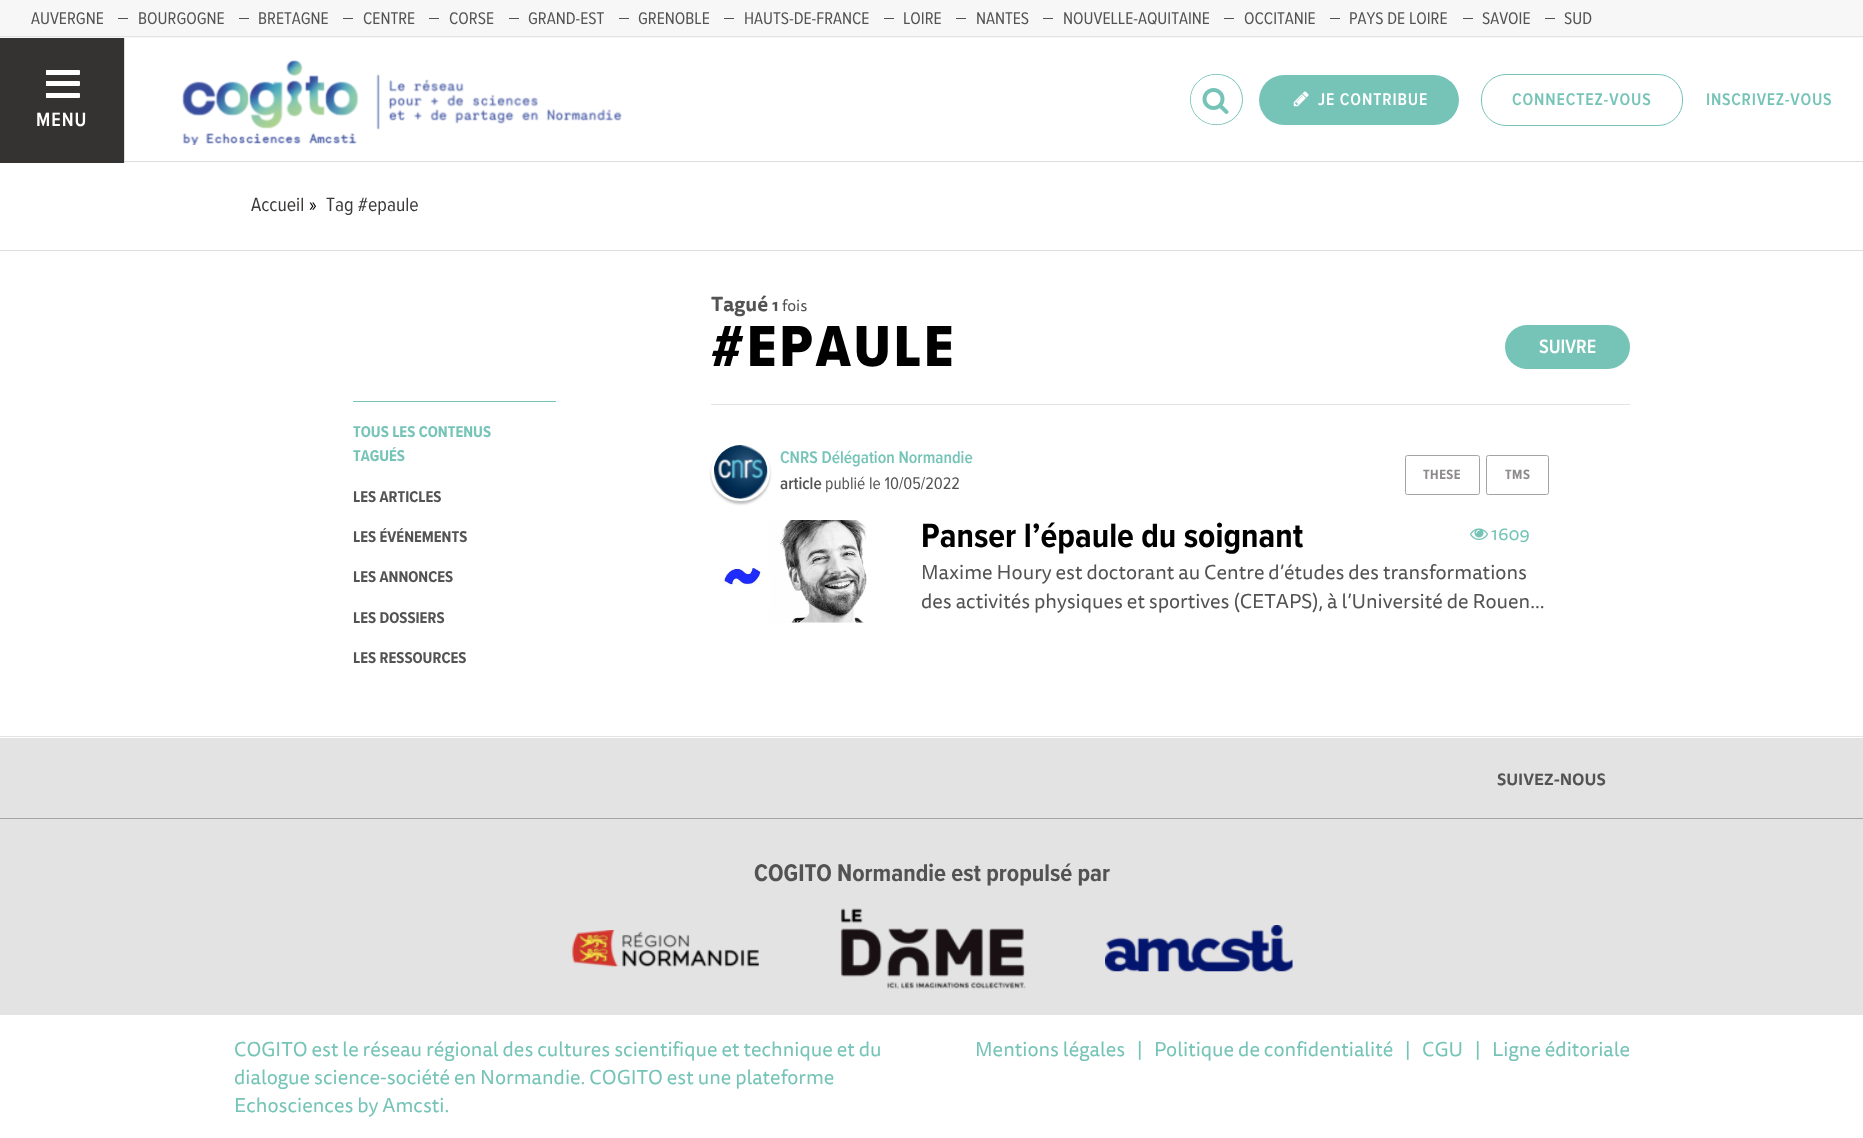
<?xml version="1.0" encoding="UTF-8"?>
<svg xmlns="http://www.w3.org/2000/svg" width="1863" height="1138">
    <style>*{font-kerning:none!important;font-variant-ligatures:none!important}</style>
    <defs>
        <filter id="blur1" x="-50%" y="-200%" width="200%" height="500%"><feGaussianBlur stdDeviation="1"/></filter>
    </defs>
    <rect width="100%" height="100%" fill="#FFFFFF"/>
    <rect x="0" y="0" width="1863" height="38" fill="#F7F7F7"/>
    <rect x="0" y="36" width="1863" height="1" fill="#E3E3E3"/>
    <text x="31" y="24" font-family="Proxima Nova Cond" font-size="17.5" fill="#535353">AUVERGNE</text>
    <rect x="118" y="18" width="10" height="1" fill="#535353"/>
    <text x="138" y="24" font-family="Proxima Nova Cond" font-size="17.5" fill="#535353">BOURGOGNE</text>
    <rect x="239" y="18" width="10" height="1" fill="#535353"/>
    <text x="258" y="24" font-family="Proxima Nova Cond" font-size="17.5" fill="#535353">BRETAGNE</text>
    <rect x="343" y="18" width="10" height="1" fill="#535353"/>
    <text x="363" y="24" font-family="Proxima Nova Cond" font-size="17.5" fill="#535353">CENTRE</text>
    <rect x="429" y="18" width="10" height="1" fill="#535353"/>
    <text x="449" y="24" font-family="Proxima Nova Cond" font-size="17.5" fill="#535353">CORSE</text>
    <rect x="509" y="18" width="10" height="1" fill="#535353"/>
    <text x="528" y="24" font-family="Proxima Nova Cond" font-size="17.5" fill="#535353">GRAND-EST</text>
    <rect x="619" y="18" width="10" height="1" fill="#535353"/>
    <text x="638" y="24" font-family="Proxima Nova Cond" font-size="17.5" fill="#535353">GRENOBLE</text>
    <rect x="724" y="18" width="10" height="1" fill="#535353"/>
    <text x="744" y="24" font-family="Proxima Nova Cond" font-size="17.5" fill="#535353">HAUTS-DE-FRANCE</text>
    <rect x="884" y="18" width="10" height="1" fill="#535353"/>
    <text x="903" y="24" font-family="Proxima Nova Cond" font-size="17.5" fill="#535353">LOIRE</text>
    <rect x="956" y="18" width="10" height="1" fill="#535353"/>
    <text x="976" y="24" font-family="Proxima Nova Cond" font-size="17.5" fill="#535353">NANTES</text>
    <rect x="1043" y="18" width="10" height="1" fill="#535353"/>
    <text x="1063" y="24" font-family="Proxima Nova Cond" font-size="17.5" fill="#535353">NOUVELLE-AQUITAINE</text>
    <rect x="1224" y="18" width="10" height="1" fill="#535353"/>
    <text x="1244" y="24" font-family="Proxima Nova Cond" font-size="17.5" fill="#535353">OCCITANIE</text>
    <rect x="1330" y="18" width="10" height="1" fill="#535353"/>
    <text x="1349" y="24" font-family="Proxima Nova Cond" font-size="17.5" fill="#535353">PAYS DE LOIRE</text>
    <rect x="1463" y="18" width="10" height="1" fill="#535353"/>
    <text x="1482" y="24" font-family="Proxima Nova Cond" font-size="17.5" fill="#535353">SAVOIE</text>
    <rect x="1545" y="18" width="10" height="1" fill="#535353"/>
    <text x="1564" y="24" font-family="Proxima Nova Cond" font-size="17.5" fill="#535353">SUD</text>
    <rect x="125" y="161" width="1738" height="1" fill="#DDDDDD"/>
    <image x="182" y="60" width="440" height="85" href="img_01.png"/>
    <rect x="1190.5" y="74.5" width="52" height="50" rx="25" fill="none" stroke="#76C4B8"/>
    <rect x="1191" y="75" width="50" height="49" rx="24.5" fill="#FFFFFF"/>
    <image x="1202" y="88" width="27" height="26" href="img_02.png"/>
    <rect x="1259" y="75" width="200" height="50" rx="25" fill="#76C4B8"/>
    <image x="1293" y="91" width="16" height="16" href="img_03.png"/>
    <text x="1318" y="105" font-family="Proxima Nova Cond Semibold" font-size="17.5" font-weight="600" letter-spacing="0.9" fill="#FFFFFF">JE CONTRIBUE</text>
    <rect x="1481.5" y="74.5" width="201" height="51" rx="24.5" fill="none" stroke="#76C4B8"/>
    <text x="1512" y="105" font-family="Proxima Nova Cond Semibold" font-size="17.5" font-weight="600" letter-spacing="0.9" fill="#76C4B8">CONNECTEZ-VOUS</text>
    <text x="1706" y="105" font-family="Proxima Nova Cond Semibold" font-size="17.5" font-weight="600" letter-spacing="0.75" fill="#76C4B8">INSCRIVEZ-VOUS</text>
    <rect x="0" y="38" width="124" height="125" fill="#353332"/>
    <rect x="124" y="38" width="1" height="125" fill="#DDDDDD"/>
    <rect x="45" y="70" width="35" height="5" rx="1" fill="#FFFFFF"/>
    <rect x="45" y="70" width="1" height="5" fill="#353332"/>
    <rect x="45" y="81" width="35" height="5" rx="1" fill="#FFFFFF"/>
    <rect x="45" y="81" width="1" height="5" fill="#353332"/>
    <rect x="45" y="93" width="35" height="5" rx="1" fill="#FFFFFF"/>
    <rect x="45" y="93" width="1" height="5" fill="#353332"/>
    <text x="36" y="126" font-family="Proxima Nova Cond Semibold" font-size="20" font-weight="600" letter-spacing="1" fill="#FFFFFF">MENU</text>
    <rect x="0" y="250" width="1863" height="1" fill="#DDDDDD"/>
    <text x="251" y="211" font-family="Proxima Nova Cond" font-size="20" fill="#3B3938">Accueil</text>
    <text x="309" y="211" font-family="Proxima Nova Cond" font-size="20" fill="#000000">»</text>
    <text x="326" y="211" font-family="Proxima Nova Cond" font-size="20" fill="#3B3938">Tag #epaule</text>
    <rect x="353" y="401" width="203" height="1" fill="#76C4B8"/>
    <text font-family="Proxima Nova Cond" font-size="16.25" font-weight="700" fill="#76C4B8">
        <tspan x="353" y="437">TOUS LES CONTENUS</tspan>
        <tspan x="353" y="461">TAGUÉS</tspan>
    </text>
    <text x="353" y="502" font-family="Proxima Nova Cond" font-size="16.25" font-weight="700" fill="#535353">LES ARTICLES</text>
    <text x="353" y="542" font-family="Proxima Nova Cond" font-size="16.25" font-weight="700" fill="#535353">LES ÉVÉNEMENTS</text>
    <text x="353" y="582" font-family="Proxima Nova Cond" font-size="16.25" font-weight="700" fill="#535353">LES ANNONCES</text>
    <text x="353" y="623" font-family="Proxima Nova Cond" font-size="16.25" font-weight="700" fill="#535353">LES DOSSIERS</text>
    <text x="353" y="663" font-family="Proxima Nova Cond" font-size="16.25" font-weight="700" fill="#535353">LES RESSOURCES</text>
    <text x="711" y="311" font-family="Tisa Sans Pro" font-size="20" font-weight="700" fill="#535353">Tagué</text>
    <text x="772" y="311" font-family="Tisa Sans Pro" font-size="16" font-weight="700" fill="#535353">1</text>
    <text x="782" y="311" font-family="Tisa Sans Pro" font-size="16" fill="#535353">fois</text>
    <text x="711" y="366" font-family="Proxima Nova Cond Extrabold" font-size="60" font-weight="800" letter-spacing="3" fill="#000000">#EPAULE</text>
    <rect x="1505" y="325" width="125" height="44" rx="22" fill="#76C4B8"/>
    <text x="1539" y="353" font-family="Proxima Nova Cond Semibold" font-size="20" font-weight="600" fill="#FFFFFF">SUIVRE</text>
    <rect x="711" y="404" width="919" height="1" fill="#E3E3E3"/>
    <rect x="711" y="445" width="59" height="59" rx="29.5" fill="#000000" fill-opacity="0.25" filter="url(#blur1)"/>
    <rect x="712.5" y="444.5" width="56" height="55" rx="27.5" fill="#FFFFFF" stroke="#FFFFFF" stroke-width="3"/>
    <image x="713" y="445" width="55" height="54" href="img_04.png"/>
    <text x="780" y="463" font-family="Proxima Nova Cond Semibold" font-size="17.5" font-weight="600" fill="#76C4B8">CNRS Délégation Normandie</text>
    <text x="780" y="489" font-family="Proxima Nova Cond Semibold" font-size="17.5" font-weight="600" fill="#535353">article</text>
    <text x="825" y="489" font-family="Proxima Nova Cond" font-size="17.5" fill="#535353">publié le 10/05/2022</text>
    <rect x="1405.5" y="455.5" width="74" height="39" rx="2" fill="none" stroke="#A4A4A4"/>
    <text x="1423" y="479" font-family="Proxima Nova Cond" font-size="14" font-weight="700" letter-spacing="0.5" fill="#8E8B8B">THESE</text>
    <rect x="1486.5" y="455.5" width="62" height="39" rx="2" fill="none" stroke="#A4A4A4"/>
    <text x="1505" y="479" font-family="Proxima Nova Cond" font-size="14" font-weight="700" letter-spacing="0.5" fill="#8E8B8B">TMS</text>
    <image x="723" y="520" width="144" height="103" href="img_05.png"/>
    <text x="921" y="547" font-family="Proxima Nova Cond" font-size="35" font-weight="700" fill="#000000">Panser l’épaule du soignant</text>
    <text font-family="Tisa Sans Pro" font-size="20" fill="#535353">
        <tspan x="921" y="579">Maxime Houry est doctorant au Centre d’études des transformations</tspan>
        <tspan x="921" y="608">des activités physiques et sportives (CETAPS), à l’Université de Rouen...</tspan>
    </text>
    <image x="1470" y="528" width="18" height="12" href="img_06.png"/>
    <text x="1491" y="540" font-family="Tisa Sans Pro" font-size="18" fill="#76C4B8">1609</text>
    <rect x="0" y="736" width="1863" height="1" fill="#E3E3E3"/>
    <rect x="0" y="738" width="1863" height="80" fill="#E3E3E3"/>
    <text x="1497" y="785" font-family="Tisa Sans Pro" font-size="16" font-weight="700" fill="#535353">SUIVEZ-NOUS</text>
    <rect x="0" y="819" width="1863" height="196" fill="#E3E3E3"/>
    <rect x="0" y="818" width="1863" height="1" fill="#A4A4A4"/>
    <text x="754" y="881" font-family="Proxima Nova Cond" font-size="25" font-weight="700" fill="#535353">COGITO Normandie est propulsé par</text>
    <image x="571" y="930" width="188" height="37" href="img_07.png"/>
    <image x="840" y="908" width="186" height="81" href="img_08.png"/>
    <image x="1105" y="925" width="188" height="47" href="img_09.png"/>
    <text font-family="Tisa Sans Pro" font-size="20" fill="#76C4B8">
        <tspan x="234" y="1056">COGITO est le réseau régional des cultures scientifique et technique et du</tspan>
        <tspan x="234" y="1084">dialogue science-société en Normandie. COGITO est une plateforme</tspan>
        <tspan x="234" y="1112">Echosciences by Amcsti.</tspan>
    </text>
    <text x="975" y="1056" font-family="Tisa Sans Pro" font-size="20" fill="#76C4B8">Mentions légales</text>
    <text x="1137" y="1056" font-family="Tisa Sans Pro" font-size="20" fill="#76C4B8">|</text>
    <text x="1154" y="1056" font-family="Tisa Sans Pro" font-size="20" fill="#76C4B8">Politique de confidentialité</text>
    <text x="1405" y="1056" font-family="Tisa Sans Pro" font-size="20" fill="#76C4B8">|</text>
    <text x="1422" y="1056" font-family="Tisa Sans Pro" font-size="20" fill="#76C4B8">CGU</text>
    <text x="1475" y="1056" font-family="Tisa Sans Pro" font-size="20" fill="#76C4B8">|</text>
    <text x="1492" y="1056" font-family="Tisa Sans Pro" font-size="20" fill="#76C4B8">Ligne éditoriale</text>
</svg>
